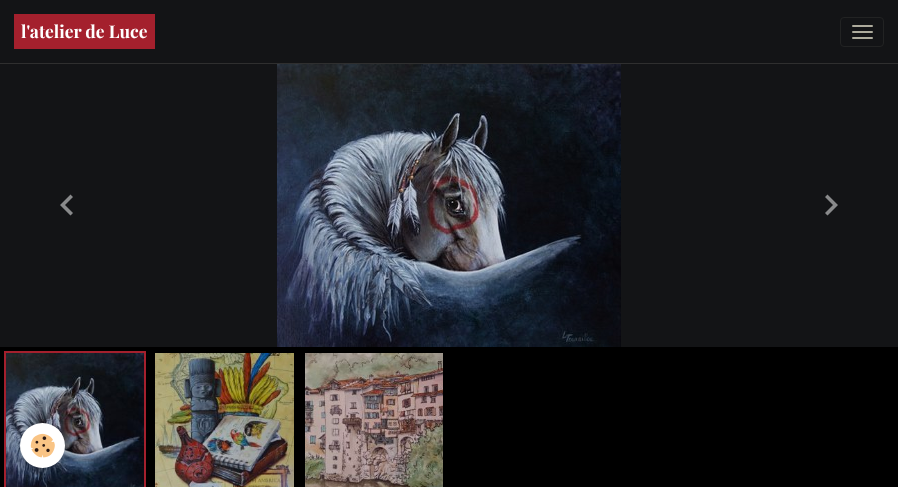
<?xml version="1.0" encoding="UTF-8"?>
<svg xmlns="http://www.w3.org/2000/svg" width="898" height="487">
    <defs>
        <filter id="blur1" x="-50%" y="-200%" width="200%" height="500%"><feGaussianBlur stdDeviation="5"/></filter>
    </defs>
    <rect width="100%" height="100%" fill="#131416"/>
    <rect x="0" y="63" width="898" height="1" fill="#2F2F2F"/>
    <rect x="14" y="14" width="141" height="35" fill="#A4202D"/>
    <text x="21" y="38" font-family="Playfair Display" font-size="17.5" font-weight="700" fill="#FFFFFF">l'atelier de Luce</text>
    <rect x="840.5" y="17.5" width="43" height="29" rx="3.5" fill="none" stroke="#222323"/>
    <rect x="852" y="25" width="21" height="2" rx="1" fill="#ADAB9C"/>
    <rect x="852" y="31" width="21" height="2" rx="1" fill="#ADAB9C"/>
    <rect x="852" y="37" width="21" height="2" rx="1" fill="#ADAB9C"/>
    <path d="M 73 197 L 65 205 L 73 213 L 70.5 215.5 L 60 205 L 70.5 194.5 Z" fill="#898A8B"/>
    <image x="277" y="64" width="344" height="283" href="img_01.png"/>
    <path d="M 827.5 194.5 L 838 205 L 827.5 215.5 L 825 213 L 833 205 L 825 197 Z" fill="#898A8B"/>
    <rect x="0" y="347" width="898" height="140" fill="#000000"/>
    <rect x="5" y="352" width="140" height="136" fill="none" stroke="#A4202D" stroke-width="2"/>
    <image x="6" y="353" width="138" height="134" href="img_02.png"/>
    <image x="155" y="353" width="139" height="134" href="img_03.png"/>
    <image x="305" y="353" width="138" height="134" href="img_04.png"/>
    <rect x="20" y="426" width="45" height="45" rx="22.5" fill="#000000" fill-opacity="0.24" filter="url(#blur1)"/>
    <circle cx="42.5" cy="445.5" r="22.5" fill="#FFFFFF"/>
    <image x="30" y="433" width="25" height="25" href="img_05.png"/>
</svg>
